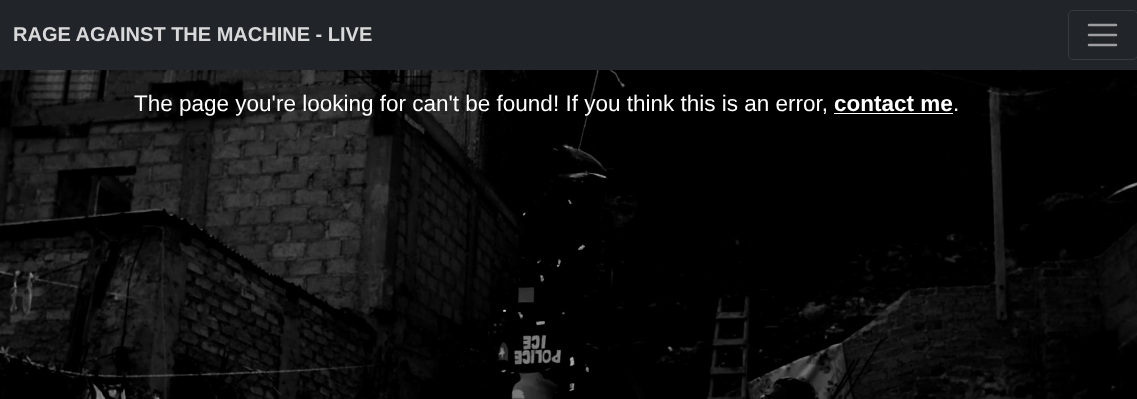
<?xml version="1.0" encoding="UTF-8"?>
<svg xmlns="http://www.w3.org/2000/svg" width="1137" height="399">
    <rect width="100%" height="100%" fill="#FFFFFF"/>
    <rect x="0" y="0" width="1137" height="70" fill="#212529"/>
    <text x="13" y="41" font-family="Liberation Sans" font-size="20" font-weight="700" fill="#D9D9D9">RAGE AGAINST THE MACHINE - LIVE</text>
    <rect x="1068.5" y="10.5" width="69" height="49" rx="4.5" fill="none" stroke="#373B3E"/>
    <path d="M 1089 25 H 1116 M 1089 35 H 1116 M 1089 45 H 1116" fill="none" stroke="#9B9D9F" stroke-width="2.5" stroke-linecap="round"/>
    <image x="0" y="70" width="1137" height="329" href="img_01.png"/>
    <text x="134" y="111" font-family="Liberation Sans" font-size="22.5" fill="#FFFFFF">The page you're looking for can't be found! If you think this is an error,</text>
    <text x="834" y="111" font-family="Liberation Sans" font-size="22.5" font-weight="700" fill="#FFFFFF">contact me</text>
    <rect x="834" y="113" width="119" height="1" fill="#FFFFFF"/>
    <text x="953" y="111" font-family="Liberation Sans" font-size="22.5" fill="#FFFFFF">.</text>
</svg>
